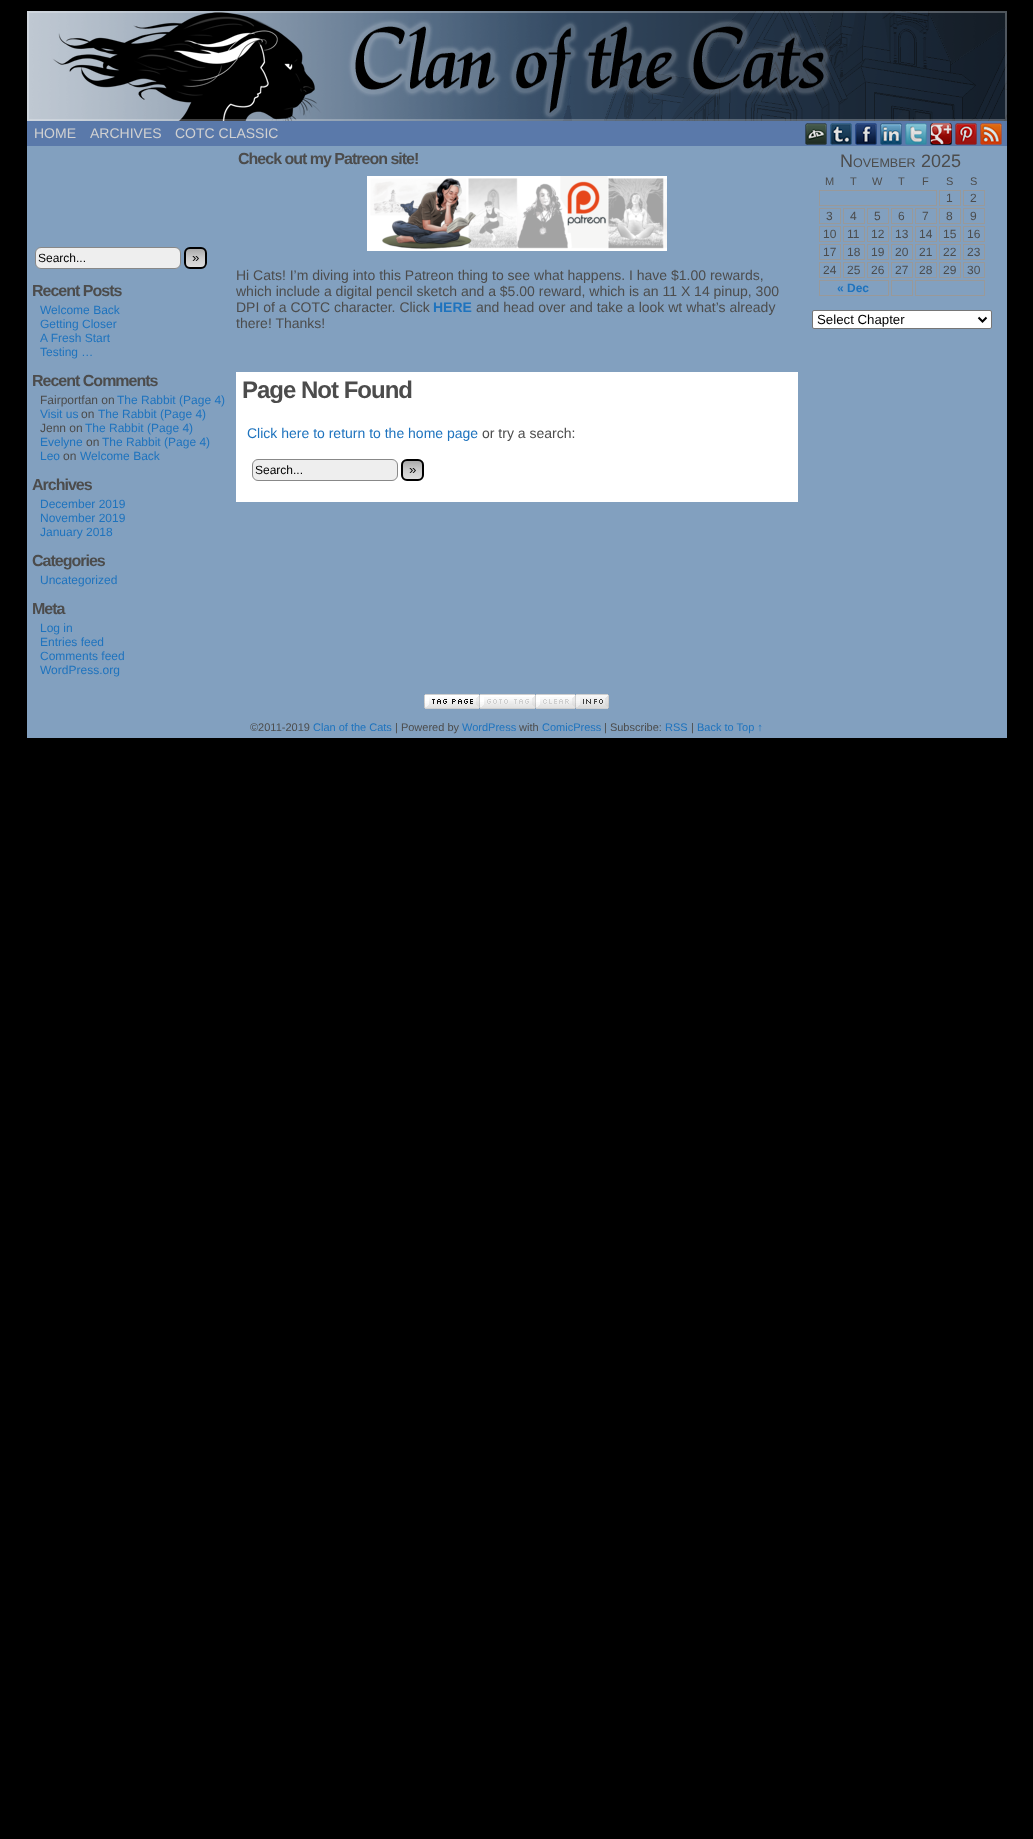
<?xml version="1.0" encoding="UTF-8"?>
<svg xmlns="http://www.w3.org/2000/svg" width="1033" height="1839">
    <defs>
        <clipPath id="clip1"><rect x="184" y="247" width="23" height="22" rx="6"/></clipPath>
        <linearGradient id="g1" gradientUnits="userSpaceOnUse" x1="196" y1="249" x2="196" y2="267"><stop offset="0" stop-color="#AAAAAA"/><stop offset="0.5" stop-color="#CCCCCC"/><stop offset="1" stop-color="#DDDDDD"/></linearGradient>
        <clipPath id="clip2"><rect x="401" y="459" width="23" height="22" rx="6"/></clipPath>
        <linearGradient id="g2" gradientUnits="userSpaceOnUse" x1="413" y1="461" x2="413" y2="479"><stop offset="0" stop-color="#AAAAAA"/><stop offset="0.5" stop-color="#CCCCCC"/><stop offset="1" stop-color="#DDDDDD"/></linearGradient>
    </defs>
    <rect width="100%" height="100%" fill="#000000"/>
    <image x="27" y="11" width="980" height="110" href="img_01.png"/>
    <rect x="27" y="121" width="980" height="25" fill="#5A79AA"/>
    <text x="34" y="138" font-family="Liberation Sans" font-size="14" fill="#D1D1D1">HOME</text>
    <text x="90" y="138" font-family="Liberation Sans" font-size="14" fill="#D1D1D1">ARCHIVES</text>
    <text x="175" y="138" font-family="Liberation Sans" font-size="14" fill="#D1D1D1">COTC CLASSIC</text>
    <image x="805" y="123" width="22" height="22" href="img_02.png"/>
    <image x="830" y="123" width="22" height="22" href="img_03.png"/>
    <image x="855" y="123" width="22" height="22" href="img_04.png"/>
    <image x="880" y="123" width="22" height="22" href="img_05.png"/>
    <image x="905" y="123" width="22" height="22" href="img_06.png"/>
    <image x="930" y="123" width="22" height="22" href="img_07.png"/>
    <image x="955" y="123" width="22" height="22" href="img_08.png"/>
    <image x="980" y="123" width="22" height="22" href="img_09.png"/>
    <rect x="27" y="146" width="980" height="592" fill="#82A0BF"/>
    <rect x="35.5" y="247.5" width="145" height="21" rx="5.5" fill="#EEEEEE" stroke="#888888"/>
    <text x="38" y="262" font-family="Liberation Sans" font-size="12" fill="#000000">Search...</text>
    <g clip-path="url(#clip1)">
        <rect x="184" y="249" width="23" height="18" fill="url(#g1)"/>
    </g>
    <rect x="185" y="248" width="21" height="20" rx="5" fill="none" stroke="#000000" stroke-width="2"/>
    <text x="192" y="262" font-family="Liberation Sans" font-size="13.25" fill="#000000">»</text>
    <text x="32" y="296" font-family="Liberation Sans" font-size="16" font-weight="700" letter-spacing="-1" fill="#4C4C4C">Recent Posts</text>
    <text font-family="Liberation Sans" font-size="12" fill="#1E73BE">
        <tspan x="40" y="314">Welcome Back</tspan>
        <tspan x="40" y="328">Getting Closer</tspan>
        <tspan x="40" y="342">A Fresh Start</tspan>
        <tspan x="40" y="356">Testing …</tspan>
    </text>
    <text x="32" y="386" font-family="Liberation Sans" font-size="16" font-weight="700" letter-spacing="-1" fill="#4C4C4C">Recent Comments</text>
    <text x="40" y="404" font-family="Liberation Sans" font-size="12" fill="#4C4C4C">Fairportfan on</text>
    <text x="117" y="404" font-family="Liberation Sans" font-size="12" fill="#1E73BE">The Rabbit (Page 4)</text>
    <text x="40" y="418" font-family="Liberation Sans" font-size="12" fill="#1E73BE">Visit us</text>
    <text x="81" y="418" font-family="Liberation Sans" font-size="12" fill="#4C4C4C">on</text>
    <text x="98" y="418" font-family="Liberation Sans" font-size="12" fill="#1E73BE">The Rabbit (Page 4)</text>
    <text x="40" y="432" font-family="Liberation Sans" font-size="12" fill="#4C4C4C">Jenn on</text>
    <text x="85" y="432" font-family="Liberation Sans" font-size="12" fill="#1E73BE">The Rabbit (Page 4)</text>
    <text x="40" y="446" font-family="Liberation Sans" font-size="12" fill="#1E73BE">Evelyne</text>
    <text x="86" y="446" font-family="Liberation Sans" font-size="12" fill="#4C4C4C">on</text>
    <text x="102" y="446" font-family="Liberation Sans" font-size="12" fill="#1E73BE">The Rabbit (Page 4)</text>
    <text x="40" y="460" font-family="Liberation Sans" font-size="12" fill="#1E73BE">Leo</text>
    <text x="63" y="460" font-family="Liberation Sans" font-size="12" fill="#4C4C4C">on</text>
    <text x="80" y="460" font-family="Liberation Sans" font-size="12" fill="#1E73BE">Welcome Back</text>
    <text x="32" y="490" font-family="Liberation Sans" font-size="16" font-weight="700" letter-spacing="-1" fill="#4C4C4C">Archives</text>
    <text font-family="Liberation Sans" font-size="12" fill="#1E73BE">
        <tspan x="40" y="508">December 2019</tspan>
        <tspan x="40" y="522">November 2019</tspan>
        <tspan x="40" y="536">January 2018</tspan>
    </text>
    <text x="32" y="566" font-family="Liberation Sans" font-size="16" font-weight="700" letter-spacing="-1" fill="#4C4C4C">Categories</text>
    <text x="40" y="584" font-family="Liberation Sans" font-size="12" fill="#1E73BE">Uncategorized</text>
    <text x="32" y="614" font-family="Liberation Sans" font-size="16" font-weight="700" letter-spacing="-1" fill="#4C4C4C">Meta</text>
    <text font-family="Liberation Sans" font-size="12" fill="#1E73BE">
        <tspan x="40" y="632">Log in</tspan>
        <tspan x="40" y="646">Entries feed</tspan>
        <tspan x="40" y="660">Comments feed</tspan>
        <tspan x="40" y="674">WordPress.org</tspan>
    </text>
    <text x="238" y="164" font-family="Liberation Sans" font-size="16" font-weight="700" letter-spacing="-1" fill="#4C4C4C">Check out my Patreon site!</text>
    <image x="367" y="176" width="300" height="75" href="img_10.png"/>
    <text font-family="Liberation Sans" font-size="14" fill="#4C4C4C">
        <tspan x="236" y="280">Hi Cats! I’m diving into this Patreon thing to see what happens. I have $1.00 rewards,</tspan>
        <tspan x="236" y="296">which include a digital pencil sketch and a $5.00 reward, which is an 11 X 14 pinup, 300</tspan>
        <tspan x="236" y="312">DPI of a COTC character. Click</tspan>
    </text>
    <text x="433" y="312" font-family="Liberation Sans" font-size="14" font-weight="700" fill="#1E73BE">HERE</text>
    <text x="476" y="312" font-family="Liberation Sans" font-size="14" fill="#4C4C4C">and head over and take a look wt what’s already</text>
    <text x="236" y="328" font-family="Liberation Sans" font-size="14" fill="#4C4C4C">there! Thanks!</text>
    <rect x="236" y="372" width="562" height="130" fill="#FFFFFF"/>
    <text x="242" y="398" font-family="Liberation Sans" font-size="24" font-weight="700" letter-spacing="-1" fill="#4C4C4C">Page Not Found</text>
    <text x="247" y="438" font-family="Liberation Sans" font-size="14" fill="#1E73BE">Click here to return to the home page</text>
    <text x="482" y="438" font-family="Liberation Sans" font-size="14" fill="#4C4C4C">or try a search:</text>
    <rect x="252.5" y="459.5" width="145" height="21" rx="5.5" fill="#EEEEEE" stroke="#888888"/>
    <text x="255" y="474" font-family="Liberation Sans" font-size="12" fill="#000000">Search...</text>
    <g clip-path="url(#clip2)">
        <rect x="401" y="461" width="23" height="18" fill="url(#g2)"/>
    </g>
    <rect x="402" y="460" width="21" height="20" rx="5" fill="none" stroke="#000000" stroke-width="2"/>
    <text x="409" y="474" font-family="Liberation Sans" font-size="13.25" fill="#000000">»</text>
    <text x="840" y="167" font-family="Liberation Sans" font-size="18" fill="#4C4C4C">N</text>
    <text x="853" y="167" font-family="Liberation Sans" font-size="12.5" fill="#4C4C4C">OVEMBER</text>
    <text x="921" y="167" font-family="Liberation Sans" font-size="18" fill="#4C4C4C">2025</text>
    <text x="825" y="185" font-family="Liberation Sans" font-size="11" fill="#4C4C4C">M</text>
    <text x="850" y="185" font-family="Liberation Sans" font-size="11" fill="#4C4C4C">T</text>
    <text x="872" y="185" font-family="Liberation Sans" font-size="11" fill="#4C4C4C">W</text>
    <text x="898" y="185" font-family="Liberation Sans" font-size="11" fill="#4C4C4C">T</text>
    <text x="922" y="185" font-family="Liberation Sans" font-size="11" fill="#4C4C4C">F</text>
    <text x="946" y="185" font-family="Liberation Sans" font-size="11" fill="#4C4C4C">S</text>
    <text x="970" y="185" font-family="Liberation Sans" font-size="11" fill="#4C4C4C">S</text>
    <rect x="819.5" y="190.5" width="117" height="15" fill="none" stroke="#999999"/>
    <rect x="939.5" y="190.5" width="21" height="15" fill="none" stroke="#999999"/>
    <text x="946" y="202" font-family="Liberation Sans" font-size="12" fill="#4C4C4C">1</text>
    <rect x="963.5" y="190.5" width="21" height="15" fill="none" stroke="#999999"/>
    <text x="970" y="202" font-family="Liberation Sans" font-size="12" fill="#4C4C4C">2</text>
    <rect x="819.5" y="208.5" width="21" height="15" fill="none" stroke="#999999"/>
    <text x="826" y="220" font-family="Liberation Sans" font-size="12" fill="#4C4C4C">3</text>
    <rect x="843.5" y="208.5" width="21" height="15" fill="none" stroke="#999999"/>
    <text x="850" y="220" font-family="Liberation Sans" font-size="12" fill="#4C4C4C">4</text>
    <rect x="867.5" y="208.5" width="21" height="15" fill="none" stroke="#999999"/>
    <text x="874" y="220" font-family="Liberation Sans" font-size="12" fill="#4C4C4C">5</text>
    <rect x="891.5" y="208.5" width="21" height="15" fill="none" stroke="#999999"/>
    <text x="898" y="220" font-family="Liberation Sans" font-size="12" fill="#4C4C4C">6</text>
    <rect x="915.5" y="208.5" width="21" height="15" fill="none" stroke="#999999"/>
    <text x="922" y="220" font-family="Liberation Sans" font-size="12" fill="#4C4C4C">7</text>
    <rect x="939.5" y="208.5" width="21" height="15" fill="none" stroke="#999999"/>
    <text x="946" y="220" font-family="Liberation Sans" font-size="12" fill="#4C4C4C">8</text>
    <rect x="963.5" y="208.5" width="21" height="15" fill="none" stroke="#999999"/>
    <text x="970" y="220" font-family="Liberation Sans" font-size="12" fill="#4C4C4C">9</text>
    <rect x="819.5" y="226.5" width="21" height="15" fill="none" stroke="#999999"/>
    <text x="823" y="238" font-family="Liberation Sans" font-size="12" fill="#4C4C4C">10</text>
    <rect x="843.5" y="226.5" width="21" height="15" fill="none" stroke="#999999"/>
    <text x="847" y="238" font-family="Liberation Sans" font-size="12" fill="#4C4C4C">11</text>
    <rect x="867.5" y="226.5" width="21" height="15" fill="none" stroke="#999999"/>
    <text x="871" y="238" font-family="Liberation Sans" font-size="12" fill="#4C4C4C">12</text>
    <rect x="891.5" y="226.5" width="21" height="15" fill="none" stroke="#999999"/>
    <text x="895" y="238" font-family="Liberation Sans" font-size="12" fill="#4C4C4C">13</text>
    <rect x="915.5" y="226.5" width="21" height="15" fill="none" stroke="#999999"/>
    <text x="919" y="238" font-family="Liberation Sans" font-size="12" fill="#4C4C4C">14</text>
    <rect x="939.5" y="226.5" width="21" height="15" fill="none" stroke="#999999"/>
    <text x="943" y="238" font-family="Liberation Sans" font-size="12" fill="#4C4C4C">15</text>
    <rect x="963.5" y="226.5" width="21" height="15" fill="none" stroke="#999999"/>
    <text x="967" y="238" font-family="Liberation Sans" font-size="12" fill="#4C4C4C">16</text>
    <rect x="819.5" y="244.5" width="21" height="15" fill="none" stroke="#999999"/>
    <text x="823" y="256" font-family="Liberation Sans" font-size="12" fill="#4C4C4C">17</text>
    <rect x="843.5" y="244.5" width="21" height="15" fill="none" stroke="#999999"/>
    <text x="847" y="256" font-family="Liberation Sans" font-size="12" fill="#4C4C4C">18</text>
    <rect x="867.5" y="244.5" width="21" height="15" fill="none" stroke="#999999"/>
    <text x="871" y="256" font-family="Liberation Sans" font-size="12" fill="#4C4C4C">19</text>
    <rect x="891.5" y="244.5" width="21" height="15" fill="none" stroke="#999999"/>
    <text x="895" y="256" font-family="Liberation Sans" font-size="12" fill="#4C4C4C">20</text>
    <rect x="915.5" y="244.5" width="21" height="15" fill="none" stroke="#999999"/>
    <text x="919" y="256" font-family="Liberation Sans" font-size="12" fill="#4C4C4C">21</text>
    <rect x="939.5" y="244.5" width="21" height="15" fill="none" stroke="#999999"/>
    <text x="943" y="256" font-family="Liberation Sans" font-size="12" fill="#4C4C4C">22</text>
    <rect x="963.5" y="244.5" width="21" height="15" fill="none" stroke="#999999"/>
    <text x="967" y="256" font-family="Liberation Sans" font-size="12" fill="#4C4C4C">23</text>
    <rect x="819.5" y="262.5" width="21" height="15" fill="none" stroke="#999999"/>
    <text x="823" y="274" font-family="Liberation Sans" font-size="12" fill="#4C4C4C">24</text>
    <rect x="843.5" y="262.5" width="21" height="15" fill="none" stroke="#999999"/>
    <text x="847" y="274" font-family="Liberation Sans" font-size="12" fill="#4C4C4C">25</text>
    <rect x="867.5" y="262.5" width="21" height="15" fill="none" stroke="#999999"/>
    <text x="871" y="274" font-family="Liberation Sans" font-size="12" fill="#4C4C4C">26</text>
    <rect x="891.5" y="262.5" width="21" height="15" fill="none" stroke="#999999"/>
    <text x="895" y="274" font-family="Liberation Sans" font-size="12" fill="#4C4C4C">27</text>
    <rect x="915.5" y="262.5" width="21" height="15" fill="none" stroke="#999999"/>
    <text x="919" y="274" font-family="Liberation Sans" font-size="12" fill="#4C4C4C">28</text>
    <rect x="939.5" y="262.5" width="21" height="15" fill="none" stroke="#999999"/>
    <text x="943" y="274" font-family="Liberation Sans" font-size="12" fill="#4C4C4C">29</text>
    <rect x="963.5" y="262.5" width="21" height="15" fill="none" stroke="#999999"/>
    <text x="967" y="274" font-family="Liberation Sans" font-size="12" fill="#4C4C4C">30</text>
    <rect x="819.5" y="280.5" width="69" height="15" fill="none" stroke="#999999"/>
    <text x="837" y="292" font-family="Liberation Sans" font-size="12" font-weight="700" fill="#1E73BE">« Dec</text>
    <rect x="891.5" y="280.5" width="21" height="15" fill="none" stroke="#999999"/>
    <rect x="915.5" y="280.5" width="69" height="15" fill="none" stroke="#999999"/>
    <rect x="812.5" y="310.5" width="179" height="18" rx="1.5" fill="#FFFFFF" stroke="#767676"/>
    <path d="M 978.5 317.5 L 982.5 321.5 L 986.5 317.5" fill="none" stroke="#000000" stroke-width="2"/>
    <text x="817" y="324" font-family="Liberation Sans" font-size="13.25" fill="#000000">Select Chapter</text>
    <image x="424" y="694" width="56" height="15" href="img_11.png"/>
    <image x="480" y="694" width="56" height="15" href="img_12.png"/>
    <image x="536" y="694" width="40" height="15" href="img_13.png"/>
    <image x="576" y="694" width="33" height="15" href="img_14.png"/>
    <text x="250" y="731" font-family="Liberation Sans" font-size="11" fill="#4C4C4C">©2011-2019</text>
    <text x="313" y="731" font-family="Liberation Sans" font-size="11" fill="#1E73BE">Clan of the Cats</text>
    <text x="395" y="731" font-family="Liberation Sans" font-size="11" fill="#4C4C4C">| Powered by</text>
    <text x="462" y="731" font-family="Liberation Sans" font-size="11" fill="#1E73BE">WordPress</text>
    <text x="519" y="731" font-family="Liberation Sans" font-size="11" fill="#4C4C4C">with</text>
    <text x="542" y="731" font-family="Liberation Sans" font-size="11" fill="#1E73BE">ComicPress</text>
    <text x="604" y="731" font-family="Liberation Sans" font-size="11" fill="#4C4C4C">| Subscribe:</text>
    <text x="665" y="731" font-family="Liberation Sans" font-size="11" fill="#1E73BE">RSS</text>
    <text x="691" y="731" font-family="Liberation Sans" font-size="11" fill="#4C4C4C">|</text>
    <text x="697" y="731" font-family="Liberation Sans" font-size="11" fill="#1E73BE">Back to Top ↑</text>
</svg>
